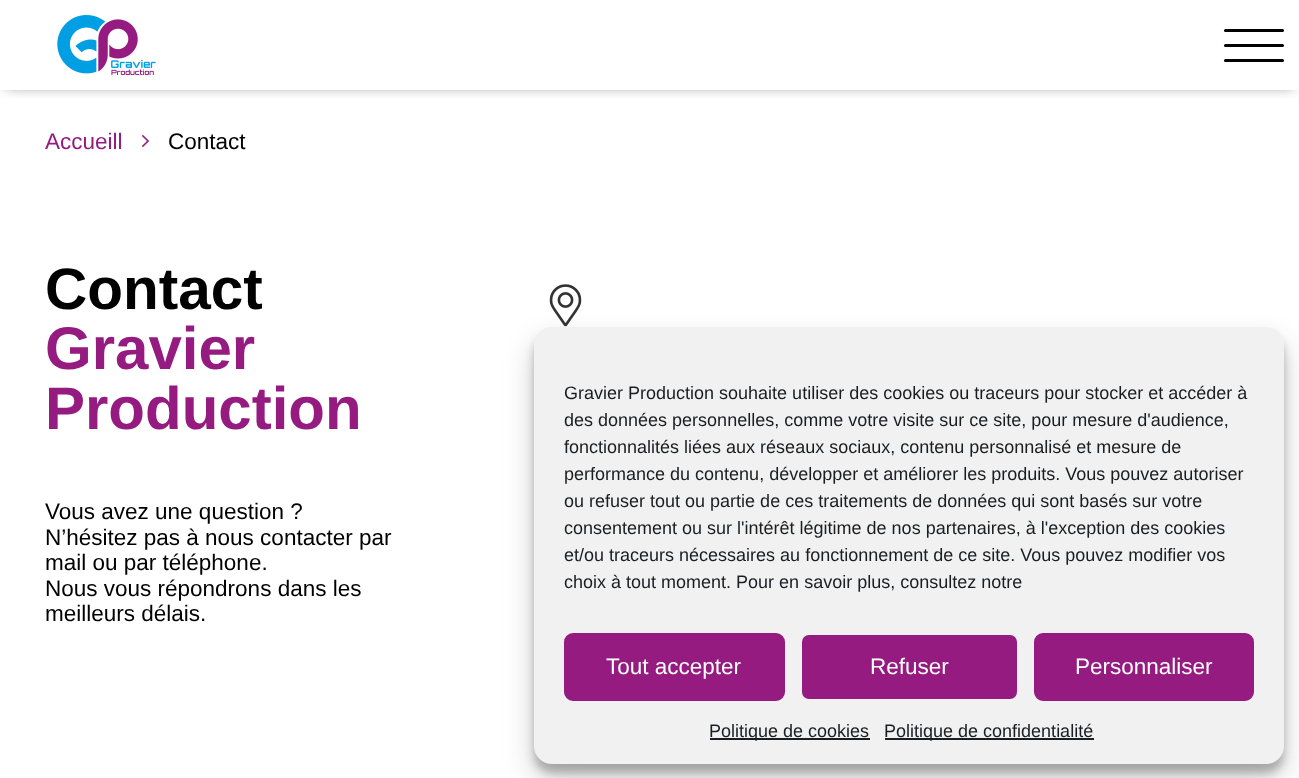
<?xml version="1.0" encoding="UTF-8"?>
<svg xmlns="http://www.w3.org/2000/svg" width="1299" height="778">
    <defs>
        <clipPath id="clip1"><rect x="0" y="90" width="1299" height="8"/></clipPath>
        <filter id="blur1" x="-50%" y="-200%" width="200%" height="500%"><feGaussianBlur stdDeviation="7.5"/></filter>
        <filter id="blur2" x="-50%" y="-200%" width="200%" height="500%"><feGaussianBlur stdDeviation="4.5"/></filter>
        <filter id="blur3" x="-50%" y="-200%" width="200%" height="500%"><feGaussianBlur stdDeviation="15"/></filter>
    </defs>
    <rect width="100%" height="100%" fill="#FFFFFF"/>
    <g clip-path="url(#clip1)">
        <rect x="6" y="6" width="1287" height="78" fill="#000000" fill-opacity="0.68" filter="url(#blur1)"/>
    </g>
    <image x="57" y="15" width="99" height="60" href="img_01.png"/>
    <rect x="1224" y="59" width="60" height="3" rx="1.5" fill="#000000"/>
    <rect x="1224" y="29" width="60" height="3" rx="1.5" fill="#000000"/>
    <rect x="1224" y="44" width="60" height="3" rx="1.5" fill="#000000"/>
    <text x="45" y="149" font-family="Liberation Sans" font-size="22.5" fill="#951B81">Accueill</text>
    <image x="142" y="135" width="7" height="12" href="img_02.png"/>
    <text x="168" y="149" font-family="Liberation Sans" font-size="22.5" fill="#000000">Contact</text>
    <text x="45" y="309" font-family="Liberation Sans" font-size="58.5" font-weight="700" fill="#000000">Contact</text>
    <text font-family="Liberation Sans" font-size="60" font-weight="700" fill="#951B81">
        <tspan x="45" y="369">Gravier</tspan>
        <tspan x="45" y="429">Production</tspan>
    </text>
    <text font-family="Liberation Sans" font-size="22.5" fill="#000000">
        <tspan x="45" y="519">Vous avez une question ?</tspan>
        <tspan x="45" y="545">N’hésitez pas à nous contacter par</tspan>
        <tspan x="45" y="570">mail ou par téléphone.</tspan>
        <tspan x="45" y="596">Nous vous répondrons dans les</tspan>
        <tspan x="45" y="621">meilleurs délais.</tspan>
    </text>
    <image x="549" y="284" width="33" height="43" href="img_03.png"/>
    <rect x="534" y="336" width="750" height="437" rx="18" fill="#000000" fill-opacity="0.23" filter="url(#blur2)"/>
    <rect x="534" y="342" width="750" height="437" rx="18" fill="#000000" fill-opacity="0.19" filter="url(#blur3)"/>
    <rect x="534" y="327" width="750" height="437" rx="18" fill="#F1F1F1"/>
    <text font-family="Liberation Sans" font-size="18" fill="#191E23">
        <tspan x="564" y="399">Gravier Production souhaite utiliser des cookies ou traceurs pour stocker et accéder à</tspan>
        <tspan x="564" y="426">des données personnelles, comme votre visite sur ce site, pour mesure d'audience,</tspan>
        <tspan x="564" y="453">fonctionnalités liées aux réseaux sociaux, contenu personnalisé et mesure de</tspan>
        <tspan x="564" y="480">performance du contenu, développer et améliorer les produits. Vous pouvez autoriser</tspan>
        <tspan x="564" y="507">ou refuser tout ou partie de ces traitements de données qui sont basés sur votre</tspan>
        <tspan x="564" y="534">consentement ou sur l'intérêt légitime de nos partenaires, à l'exception des cookies</tspan>
        <tspan x="564" y="561">et/ou traceurs nécessaires au fonctionnement de ce site. Vous pouvez modifier vos</tspan>
        <tspan x="564" y="588">choix à tout moment. Pour en savoir plus, consultez notre</tspan>
    </text>
    <rect x="565" y="634" width="219" height="66" rx="8" fill="#951B81" stroke="#951B81" stroke-width="2"/>
    <text x="606" y="674" font-family="Liberation Sans" font-size="22.5" fill="#FFFFFF">Tout accepter</text>
    <rect x="801" y="634" width="217" height="66" rx="8" fill="#951B81" stroke="#F1F1F1" stroke-width="2"/>
    <text x="870" y="674" font-family="Liberation Sans" font-size="22.5" fill="#FFFFFF">Refuser</text>
    <rect x="1035" y="634" width="218" height="66" rx="8" fill="#951B81" stroke="#951B81" stroke-width="2"/>
    <text x="1075" y="674" font-family="Liberation Sans" font-size="22.5" fill="#FFFFFF">Personnaliser</text>
    <rect x="710" y="738" width="160" height="2" fill="#191E23"/>
    <text x="709" y="737" font-family="Liberation Sans" font-size="18" fill="#191E23">Politique de cookies</text>
    <rect x="885" y="738" width="209" height="2" fill="#191E23"/>
    <text x="884" y="737" font-family="Liberation Sans" font-size="18" fill="#191E23">Politique de confidentialité</text>
</svg>
